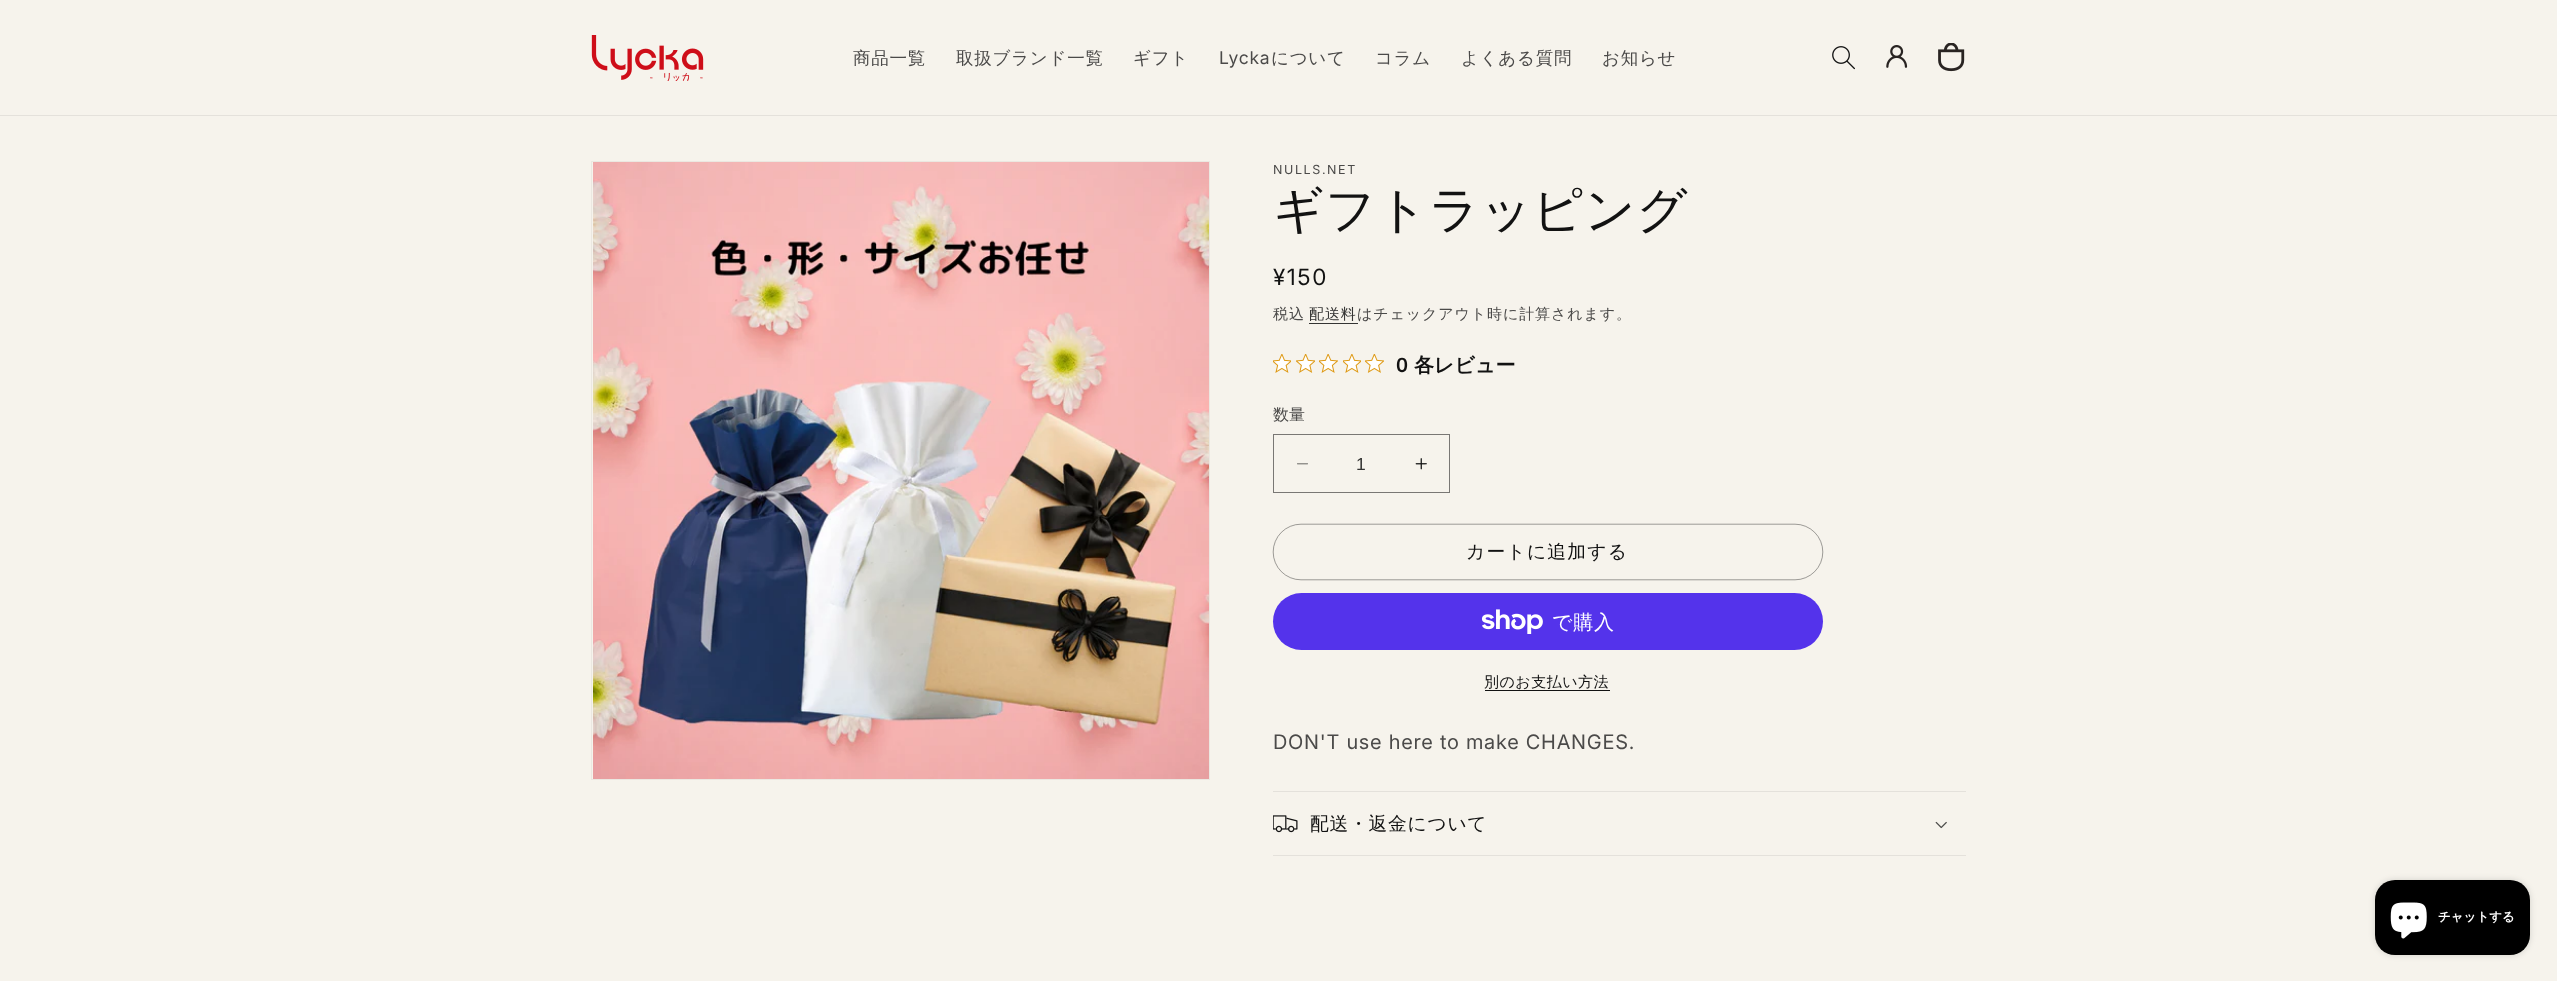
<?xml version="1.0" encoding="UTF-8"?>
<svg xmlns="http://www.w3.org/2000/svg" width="2557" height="981">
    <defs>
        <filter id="blur1" x="-50%" y="-200%" width="200%" height="500%"><feGaussianBlur stdDeviation="3"/></filter>
    </defs>
    <rect width="100%" height="100%" fill="#F6F3EC"/>
    <rect x="0" y="115" width="2557" height="1" fill="#E4E1DB"/>
    <image x="591" y="35" width="113" height="46" href="img_01.png"/>
    <text x="853" y="64" font-family="WenQuanYi Zen Hei" font-size="17.5" font-weight="500" letter-spacing="0.75" fill="#4B4A49">商品一覧</text>
    <text x="956" y="64" font-family="WenQuanYi Zen Hei" font-size="17.5" font-weight="500" letter-spacing="0.75" fill="#4B4A49">取扱ブランド一覧</text>
    <text x="1133" y="64" font-family="WenQuanYi Zen Hei" font-size="17.5" font-weight="500" letter-spacing="0.75" fill="#4B4A49">ギフト</text>
    <text x="1219" y="64" font-family="Inter" font-size="17.5" letter-spacing="0.75" fill="#4B4A49">Lycka</text>
    <text x="1271" y="64" font-family="WenQuanYi Zen Hei" font-size="17.5" font-weight="500" letter-spacing="0.75" fill="#4B4A49">について</text>
    <text x="1375" y="64" font-family="WenQuanYi Zen Hei" font-size="17.5" font-weight="500" letter-spacing="0.75" fill="#4B4A49">コラム</text>
    <text x="1461" y="64" font-family="WenQuanYi Zen Hei" font-size="17.5" font-weight="500" letter-spacing="0.75" fill="#4B4A49">よくある質問</text>
    <text x="1602" y="64" font-family="WenQuanYi Zen Hei" font-size="17.5" font-weight="500" letter-spacing="0.75" fill="#4B4A49">お知らせ</text>
    <image x="1832" y="46" width="23" height="24" href="img_02.png"/>
    <image x="1886" y="45" width="22" height="23" href="img_03.png"/>
    <image x="1938" y="43" width="27" height="29" href="img_04.png"/>
    <rect x="591.5" y="161.5" width="618" height="618" fill="none" stroke="#EBE8E1"/>
    <image x="593" y="162" width="616" height="617" href="img_05.png"/>
    <text x="1273" y="174" font-family="Inter" font-size="12.5" letter-spacing="1.6" fill="#4B4A49">NULLS.NET</text>
    <text x="1273" y="227" font-family="WenQuanYi Zen Hei" font-size="50" font-weight="500" letter-spacing="0.75" fill="#121212">ギフトラッピング</text>
    <text x="1273" y="285" font-family="'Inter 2'" font-size="22.5" letter-spacing="1.6" fill="#121212">¥150</text>
    <text x="1273" y="319" font-family="WenQuanYi Zen Hei" font-size="15" font-weight="500" letter-spacing="0.9" fill="#4B4A49">税込</text>
    <text x="1309" y="319" font-family="WenQuanYi Zen Hei" font-size="15" font-weight="500" letter-spacing="0.9" fill="#343433">配送料</text>
    <rect x="1309" y="323" width="49" height="1" fill="#343433"/>
    <text x="1357" y="319" font-family="WenQuanYi Zen Hei" font-size="15" font-weight="500" letter-spacing="0.9" fill="#4B4A49">はチェックアウト時に計算されます。</text>
    <image x="1273" y="354" width="18" height="19" href="img_06.png"/>
    <image x="1296" y="354" width="19" height="19" href="img_07.png"/>
    <image x="1319" y="354" width="19" height="19" href="img_08.png"/>
    <image x="1343" y="354" width="18" height="19" href="img_06.png"/>
    <image x="1365" y="354" width="19" height="19" href="img_09.png"/>
    <text x="1396" y="372" font-family="Nunito Sans" font-size="20" font-weight="200" fill="#121212">0</text>
    <text x="1414" y="372" font-family="WenQuanYi Zen Hei" font-size="20" font-weight="700" fill="#121212">各レビュー</text>
    <text x="1273" y="420" font-family="WenQuanYi Zen Hei" font-size="16" font-weight="500" fill="#4B4A49">数量</text>
    <image x="1297" y="463" width="11" height="2" href="img_10.png"/>
    <image x="1415" y="458" width="12" height="12" href="img_11.png"/>
    <rect x="1273.5" y="434.5" width="176" height="58" fill="none" stroke="#797774"/>
    <text x="1356" y="470" font-family="Liberation Sans" font-size="17.5" fill="#343433">1</text>
    <rect x="1273.2" y="524.2" width="549.6" height="55.6" rx="27.8" fill="none" stroke="#121212" stroke-width="0.4"/>
    <text x="1466" y="558" font-family="WenQuanYi Zen Hei" font-size="18.75" font-weight="500" letter-spacing="1.25" fill="#121212">カートに追加する</text>
    <rect x="1273" y="593" width="550" height="57" rx="28.5" fill="#5433EB"/>
    <image x="1481" y="609" width="62" height="25" href="img_12.png"/>
    <text x="1552" y="629" font-family="WenQuanYi Zen Hei" font-size="20" font-weight="500" letter-spacing="0.75" fill="#FFFFFF">で購入</text>
    <text x="1484" y="687" font-family="WenQuanYi Zen Hei" font-size="15" font-weight="500" letter-spacing="0.5" fill="#121212">別のお支払い方法</text>
    <rect x="1485" y="690" width="125" height="1" fill="#121212"/>
    <text x="1273" y="749" font-family="'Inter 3'" font-size="20" letter-spacing="0.75" fill="#4B4A49">DON'T use here to make CHANGES.</text>
    <rect x="1273" y="791" width="693" height="1" fill="#E4E1DB"/>
    <rect x="1273" y="855" width="693" height="1" fill="#E4E1DB"/>
    <image x="1273" y="815" width="25" height="18" href="img_13.png"/>
    <text x="1310" y="830" font-family="WenQuanYi Zen Hei" font-size="18.75" font-weight="500" letter-spacing="0.75" fill="#121212">配送・返金について</text>
    <image x="1935" y="821" width="12" height="8" href="img_14.png"/>
    <rect x="2375" y="880" width="155" height="75" rx="20" fill="#000000" fill-opacity="0.15" filter="url(#blur1)"/>
    <rect x="2375" y="880" width="155" height="75" rx="20" fill="#000000"/>
    <image x="2390" y="902" width="37" height="37" href="img_15.png"/>
    <text x="2438" y="921" font-family="WenQuanYi Zen Hei" font-size="12.5" font-weight="700" fill="#FFFFFF">チャットする</text>
</svg>
